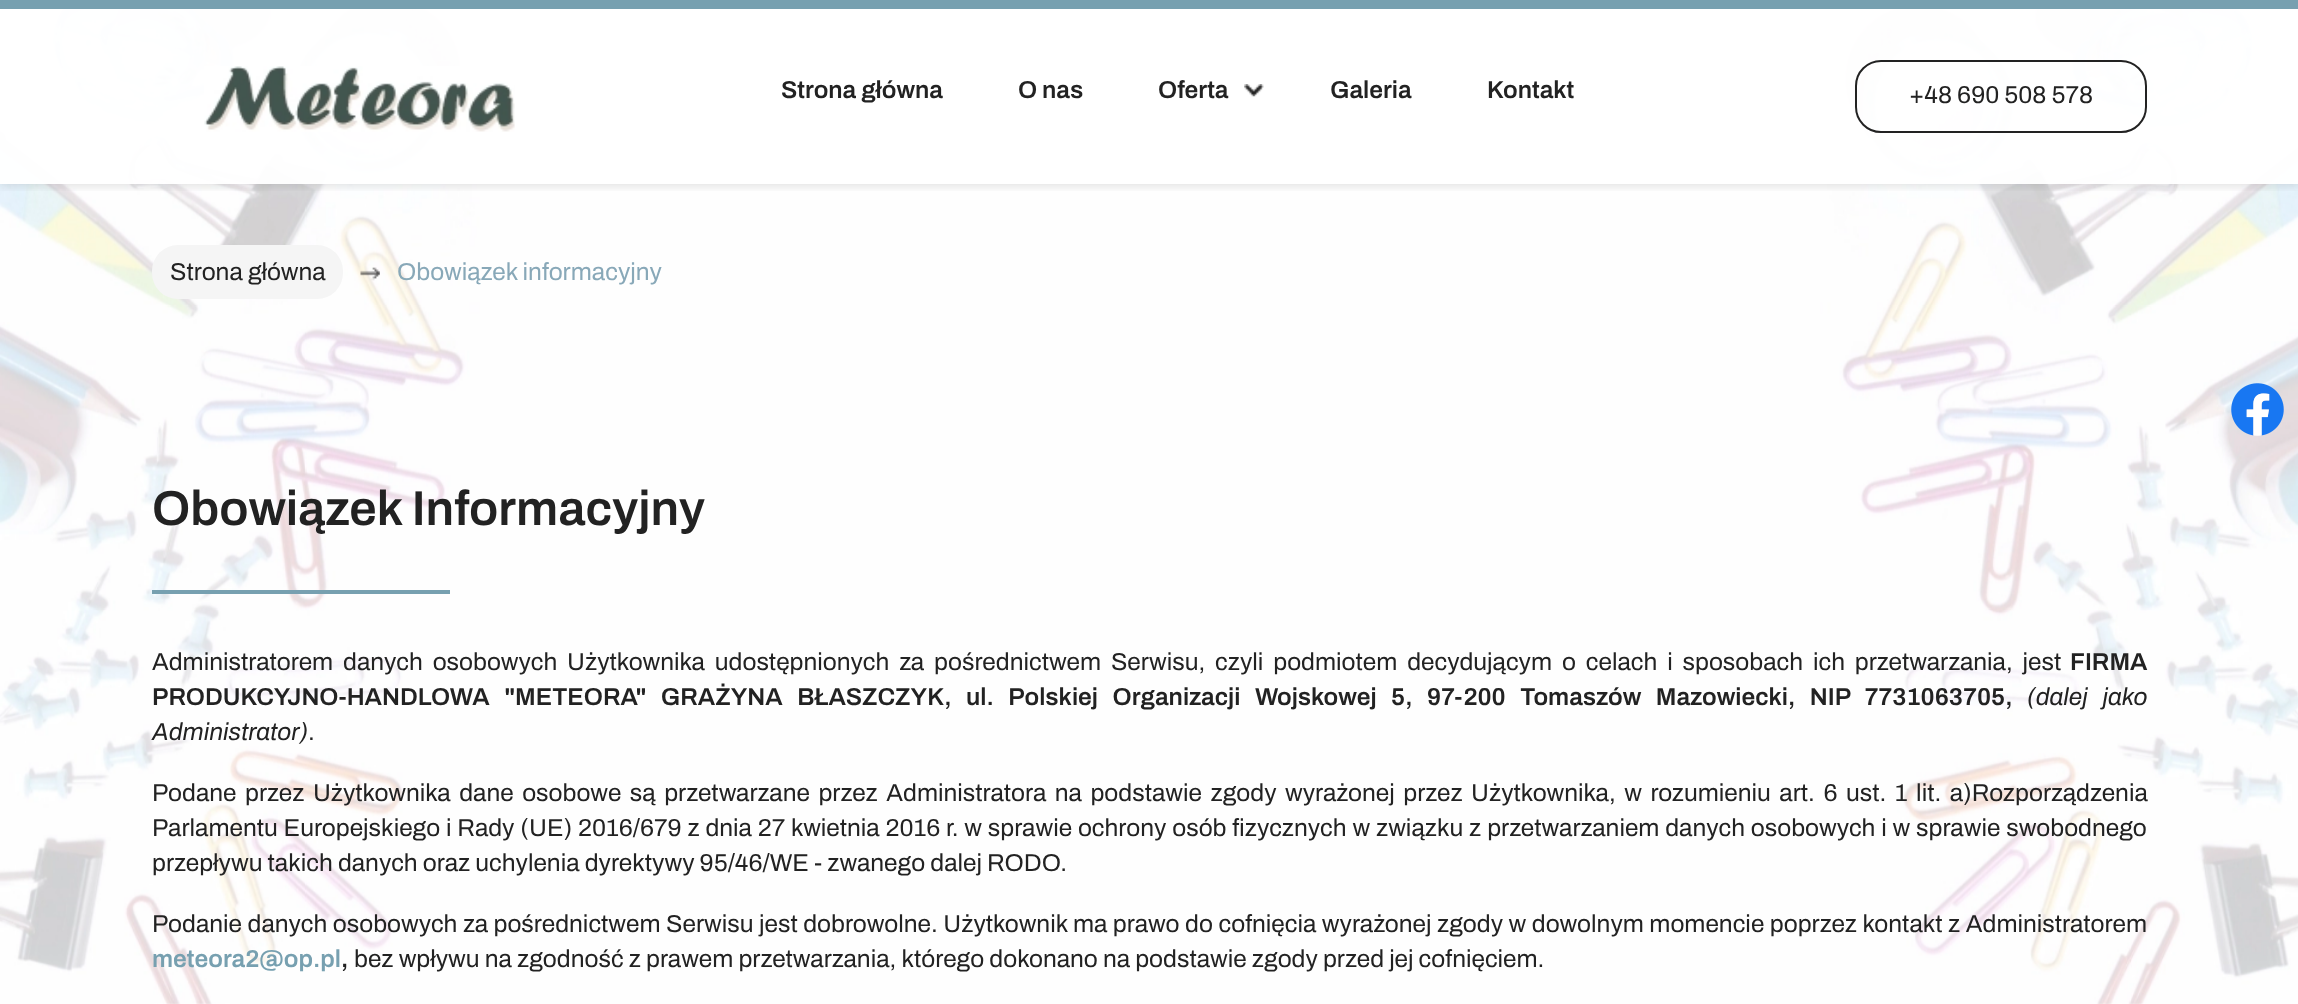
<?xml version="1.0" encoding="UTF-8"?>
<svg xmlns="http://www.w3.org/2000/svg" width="2298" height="1004">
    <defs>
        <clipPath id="clip1"><rect x="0" y="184" width="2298" height="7"/></clipPath>
        <filter id="blur1" x="-50%" y="-200%" width="200%" height="500%"><feGaussianBlur stdDeviation="4.5"/></filter>
    </defs>
    <rect width="100%" height="100%" fill="#FFFFFF"/>
    <image x="0" y="9" width="2298" height="995" href="img_01.png"/>
    <rect x="0" y="0" width="2298" height="9" fill="#77A0B0"/>
    <g clip-path="url(#clip1)">
        <rect x="0" y="12" width="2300" height="175" fill="#000000" fill-opacity="0.1" filter="url(#blur1)"/>
    </g>
    <rect x="0" y="9" width="2298" height="175" fill="#FFFFFF" fill-opacity="0.95"/>
    <image x="204" y="66" width="311" height="66" href="img_02.png"/>
    <text x="781" y="98" font-family="Archivo" font-size="24.5" font-weight="600" fill="#222222">Strona główna</text>
    <text x="1018" y="98" font-family="Archivo" font-size="24.5" font-weight="600" fill="#222222">O nas</text>
    <image x="1244" y="84" width="20" height="13" href="img_03.png"/>
    <text x="1158" y="98" font-family="Archivo" font-size="24.5" font-weight="600" fill="#222222">Oferta</text>
    <text x="1330" y="98" font-family="Archivo" font-size="24.5" font-weight="600" fill="#222222">Galeria</text>
    <text x="1487" y="98" font-family="Archivo" font-size="24.5" font-weight="600" fill="#222222">Kontakt</text>
    <rect x="1856" y="61" width="290" height="71" rx="25" fill="none" stroke="#222222" stroke-width="2"/>
    <text x="1909" y="103" font-family="Archivo" font-size="24.5" fill="#222222">+48 690 508 578</text>
    <rect x="152" y="245" width="191" height="54" rx="26" fill="#F5F5F5"/>
    <text x="170" y="280" font-family="Archivo" font-size="24.5" fill="#222222">Strona główna</text>
    <image x="360" y="267" width="20" height="14" href="img_04.png"/>
    <text x="397" y="280" font-family="Archivo" font-size="24.5" fill="#88A8B8">Obowiązek informacyjny</text>
    <text x="152" y="525" font-family="Archivo" font-size="49" font-weight="600" fill="#222222">Obowiązek Informacyjny</text>
    <rect x="152" y="590" width="298" height="4" fill="#77A0B0"/>
    <text x="152" y="670" word-spacing="4.75" font-family="Archivo" font-size="24.5" fill="#222222">Administratorem danych osobowych Użytkownika udostępnionych za pośrednictwem Serwisu, czyli podmiotem decydującym o celach i sposobach ich przetwarzania, jest</text>
    <text x="2070" y="670" font-family="Archivo" font-size="24.5" font-weight="600" fill="#222222">FIRMA</text>
    <text x="152" y="705" word-spacing="9.6" font-family="Archivo" font-size="24.5" font-weight="600" fill="#222222">PRODUKCYJNO-HANDLOWA "METEORA" GRAŻYNA BŁASZCZYK, ul. Polskiej Organizacji Wojskowej 5, 97-200 Tomaszów Mazowiecki, NIP 7731063705,</text>
    <text x="2027" y="705" word-spacing="9.6" font-family="Archivo" font-size="24.5" font-style="italic" fill="#222222">(dalej jako</text>
    <text x="152" y="740" font-family="Archivo" font-size="24.5" font-style="italic" fill="#222222">Administrator)</text>
    <text x="308" y="740" font-family="Archivo" font-size="24.5" fill="#222222">.</text>
    <text font-family="Archivo" font-size="24.5" fill="#222222">
        <tspan x="152" y="801" word-spacing="3.4">Podane przez Użytkownika dane osobowe są przetwarzane przez Administratora na podstawie zgody wyrażonej przez Użytkownika, w rozumieniu art. 6 ust. 1 lit. a)Rozporządzenia</tspan>
        <tspan x="152" y="836" word-spacing="0.7">Parlamentu Europejskiego i Rady (UE) 2016/679 z dnia 27 kwietnia 2016 r. w sprawie ochrony osób fizycznych w związku z przetwarzaniem danych osobowych i w sprawie swobodnego</tspan>
        <tspan x="152" y="871">przepływu takich danych oraz uchylenia dyrektywy 95/46/WE - zwanego dalej RODO.</tspan>
    </text>
    <text x="152" y="932" word-spacing="0.4" font-family="Archivo" font-size="24.5" fill="#222222">Podanie danych osobowych za pośrednictwem Serwisu jest dobrowolne. Użytkownik ma prawo do cofnięcia wyrażonej zgody w dowolnym momencie poprzez kontakt z Administratorem</text>
    <text x="152" y="967" font-family="Archivo" font-size="24.5" font-weight="600" fill="#77A0B0">meteora2@op.pl</text>
    <text x="341" y="967" font-family="Archivo" font-size="24.5" font-weight="600" fill="#222222">,</text>
    <text x="354" y="967" font-family="Archivo" font-size="24.5" fill="#222222">bez wpływu na zgodność z prawem przetwarzania, którego dokonano na podstawie zgody przed jej cofnięciem.</text>
    <image x="2231" y="383" width="53" height="53" href="img_05.png"/>
</svg>
